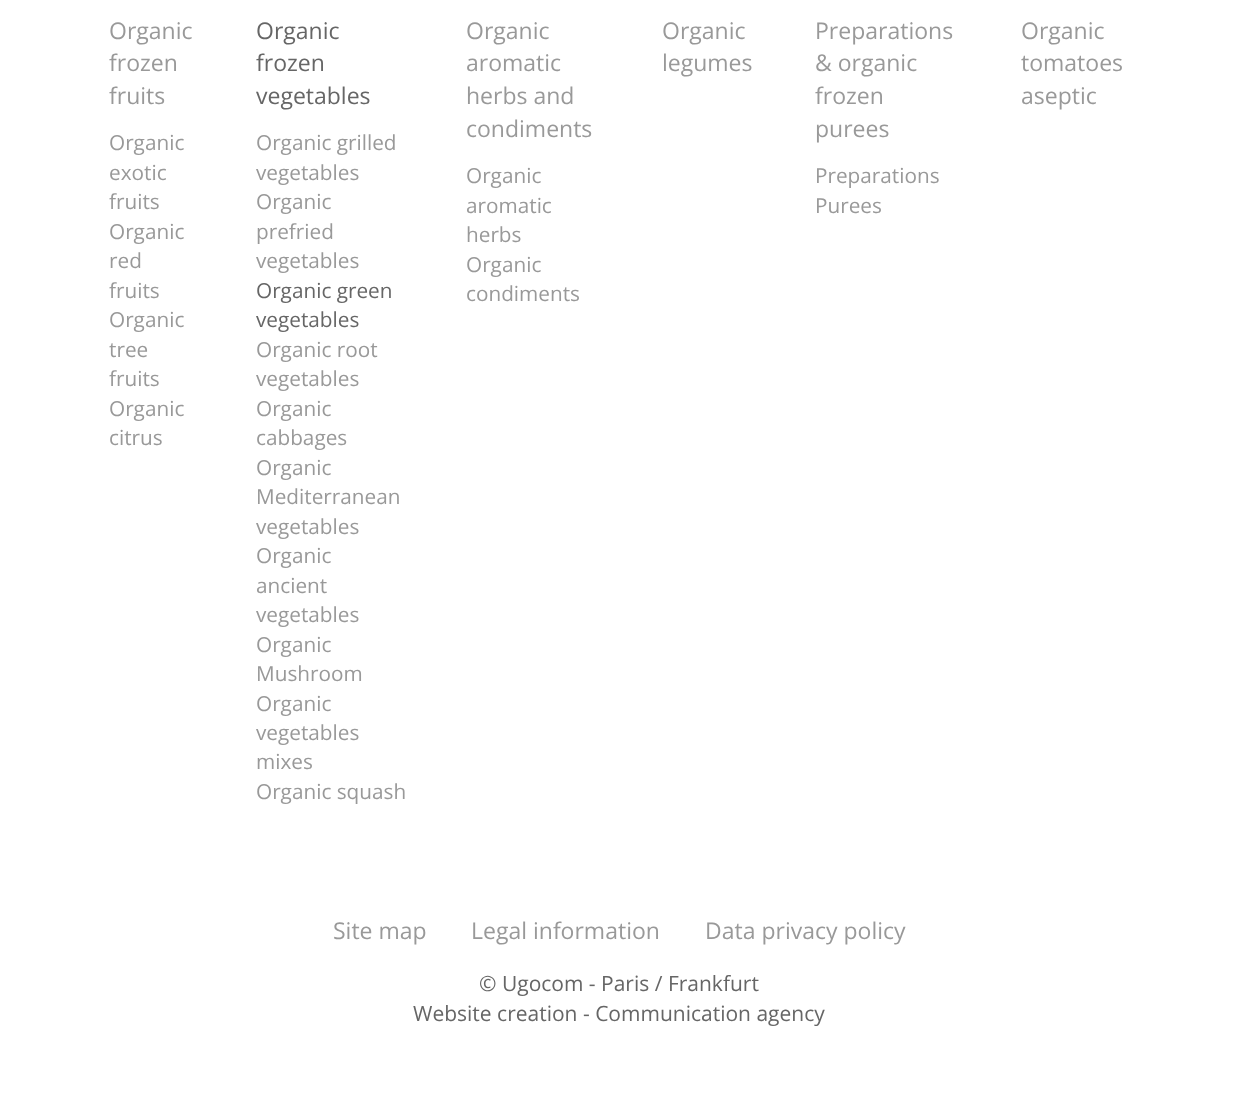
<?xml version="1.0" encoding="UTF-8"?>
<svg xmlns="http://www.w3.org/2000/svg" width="1237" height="1103">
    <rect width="100%" height="100%" fill="#FFFFFF"/>
    <text font-family="Open Sans" font-size="23" fill="#999999">
        <tspan x="109" y="39">Organic</tspan>
        <tspan x="109" y="71">frozen</tspan>
        <tspan x="109" y="104">fruits</tspan>
    </text>
    <text font-family="Open Sans" font-size="20.75" fill="#999999">
        <tspan x="109" y="150">Organic</tspan>
        <tspan x="109" y="180">exotic</tspan>
        <tspan x="109" y="209">fruits</tspan>
        <tspan x="109" y="239">Organic</tspan>
        <tspan x="109" y="268">red</tspan>
        <tspan x="109" y="298">fruits</tspan>
        <tspan x="109" y="327">Organic</tspan>
        <tspan x="109" y="357">tree</tspan>
        <tspan x="109" y="386">fruits</tspan>
        <tspan x="109" y="416">Organic</tspan>
        <tspan x="109" y="445">citrus</tspan>
    </text>
    <text font-family="Open Sans" font-size="23" fill="#666666">
        <tspan x="256" y="39">Organic</tspan>
        <tspan x="256" y="71">frozen</tspan>
        <tspan x="256" y="104">vegetables</tspan>
    </text>
    <text font-family="Open Sans" font-size="20.75" fill="#999999">
        <tspan x="256" y="150">Organic grilled</tspan>
        <tspan x="256" y="180">vegetables</tspan>
        <tspan x="256" y="209">Organic</tspan>
        <tspan x="256" y="239">prefried</tspan>
        <tspan x="256" y="268">vegetables</tspan>
    </text>
    <text font-family="Open Sans" font-size="20.75" fill="#666666">
        <tspan x="256" y="298">Organic green</tspan>
        <tspan x="256" y="327">vegetables</tspan>
    </text>
    <text font-family="Open Sans" font-size="20.75" fill="#999999">
        <tspan x="256" y="357">Organic root</tspan>
        <tspan x="256" y="386">vegetables</tspan>
        <tspan x="256" y="416">Organic</tspan>
        <tspan x="256" y="445">cabbages</tspan>
        <tspan x="256" y="475">Organic</tspan>
        <tspan x="256" y="504">Mediterranean</tspan>
        <tspan x="256" y="534">vegetables</tspan>
        <tspan x="256" y="563">Organic</tspan>
        <tspan x="256" y="593">ancient</tspan>
        <tspan x="256" y="622">vegetables</tspan>
        <tspan x="256" y="652">Organic</tspan>
        <tspan x="256" y="681">Mushroom</tspan>
        <tspan x="256" y="711">Organic</tspan>
        <tspan x="256" y="740">vegetables</tspan>
        <tspan x="256" y="769">mixes</tspan>
        <tspan x="256" y="799">Organic squash</tspan>
    </text>
    <text font-family="Open Sans" font-size="23" fill="#999999">
        <tspan x="466" y="39">Organic</tspan>
        <tspan x="466" y="71">aromatic</tspan>
        <tspan x="466" y="104">herbs and</tspan>
        <tspan x="466" y="137">condiments</tspan>
    </text>
    <text font-family="Open Sans" font-size="20.75" fill="#999999">
        <tspan x="466" y="183">Organic</tspan>
        <tspan x="466" y="213">aromatic</tspan>
        <tspan x="466" y="242">herbs</tspan>
        <tspan x="466" y="272">Organic</tspan>
        <tspan x="466" y="301">condiments</tspan>
    </text>
    <text font-family="Open Sans" font-size="23" fill="#999999">
        <tspan x="662" y="39">Organic</tspan>
        <tspan x="662" y="71">legumes</tspan>
    </text>
    <text font-family="Open Sans" font-size="23" fill="#999999">
        <tspan x="815" y="39">Preparations</tspan>
        <tspan x="815" y="71">&amp; organic</tspan>
        <tspan x="815" y="104">frozen</tspan>
        <tspan x="815" y="137">purees</tspan>
    </text>
    <text font-family="Open Sans" font-size="20.75" fill="#999999">
        <tspan x="815" y="183">Preparations</tspan>
        <tspan x="815" y="213">Purees</tspan>
    </text>
    <text font-family="Open Sans" font-size="23" fill="#999999">
        <tspan x="1021" y="39">Organic</tspan>
        <tspan x="1021" y="71">tomatoes</tspan>
        <tspan x="1021" y="104">aseptic</tspan>
    </text>
    <text x="333" y="939" font-family="Open Sans" font-size="23" fill="#999999">Site map</text>
    <text x="471" y="939" font-family="Open Sans" font-size="23" fill="#999999">Legal information</text>
    <text x="705" y="939" font-family="Open Sans" font-size="23" fill="#999999">Data privacy policy</text>
    <text x="479" y="991" font-family="Open Sans" font-size="21" fill="#666666">© Ugocom - Paris / Frankfurt</text>
    <text x="413" y="1021" font-family="Open Sans" font-size="21" fill="#666666">Website creation - Communication agency</text>
</svg>
